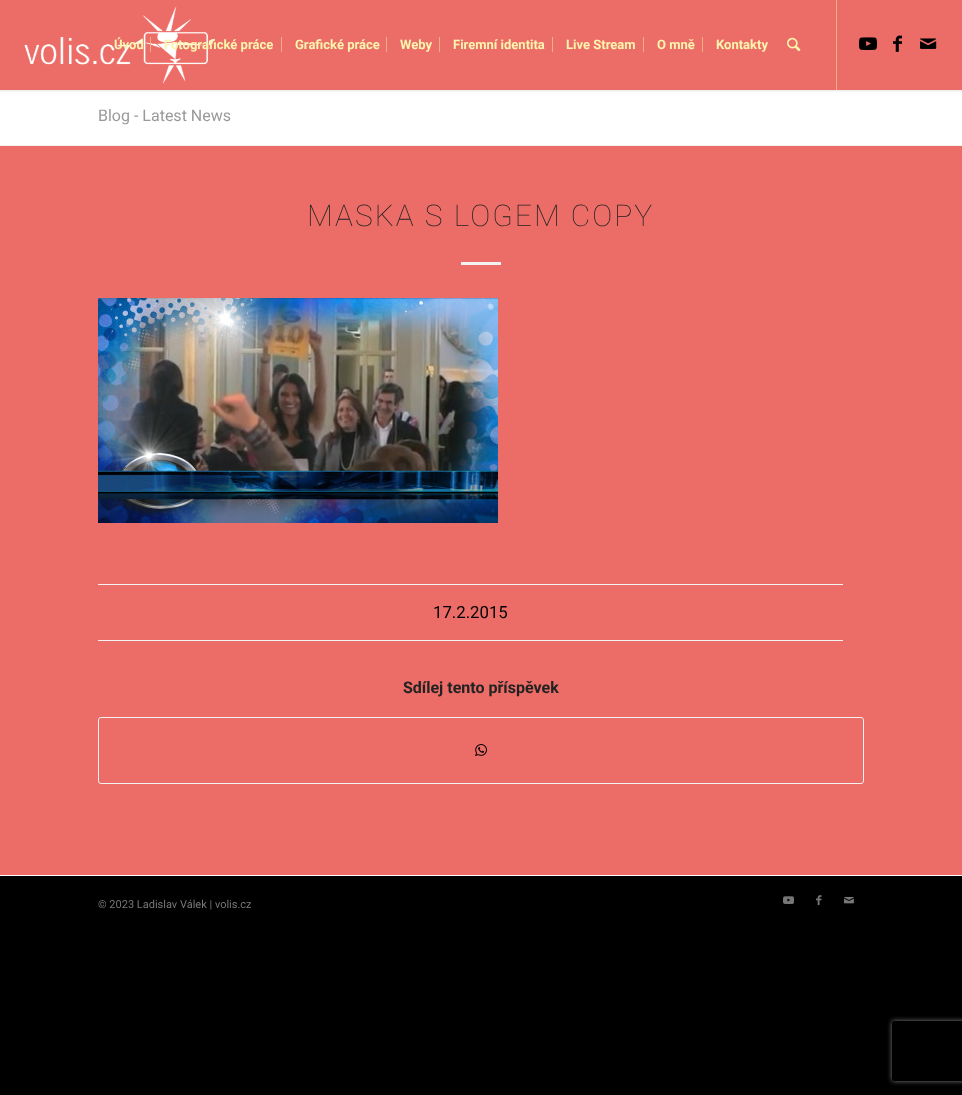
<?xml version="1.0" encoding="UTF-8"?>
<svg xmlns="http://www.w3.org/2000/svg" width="962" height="1095">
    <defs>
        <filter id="blur1" x="-50%" y="-200%" width="200%" height="500%"><feGaussianBlur stdDeviation="1"/></filter>
        <clipPath id="clip1"><path d="M 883 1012 H 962 V 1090 H 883 Z M 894 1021 H 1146 C 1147 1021 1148 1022 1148 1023 V 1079 C 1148 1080 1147 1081 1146 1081 H 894 C 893 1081 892 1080 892 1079 V 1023 C 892 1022 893 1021 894 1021 Z" clip-rule="evenodd"/></clipPath>
        <filter id="blur2" x="-50%" y="-200%" width="200%" height="500%"><feGaussianBlur stdDeviation="2.5"/></filter>
    </defs>
    <rect width="100%" height="100%" fill="#000000"/>
    <rect x="0" y="146" width="962" height="729" fill="#EC6D67"/>
    <rect x="0" y="90" width="962" height="55" fill="#FFFFFF"/>
    <rect x="-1" y="-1" width="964" height="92" fill="#000000" fill-opacity="0.1" filter="url(#blur1)"/>
    <rect x="0" y="0" width="962" height="90" fill="#EC6D67"/>
    <image x="24" y="7" width="191" height="77" href="img_01.png"/>
    <rect x="836" y="0" width="1" height="90" fill="#F2AF7F"/>
    <text x="114" y="49" font-family="Roboto" font-size="13" font-weight="700" fill="#FBF5AE">Úvod</text>
    <text x="164" y="49" font-family="Roboto" font-size="13" font-weight="700" fill="#FBF5AE">Fotografické práce</text>
    <rect x="150" y="37" width="1" height="15" fill="#F2AF7F"/>
    <text x="295" y="49" font-family="Roboto" font-size="13" font-weight="700" fill="#FBF5AE">Grafické práce</text>
    <rect x="281" y="37" width="1" height="15" fill="#F2AF7F"/>
    <text x="400" y="49" font-family="Roboto" font-size="13" font-weight="700" fill="#FBF5AE">Weby</text>
    <rect x="386" y="37" width="1" height="15" fill="#F2AF7F"/>
    <text x="453" y="49" font-family="Roboto" font-size="13" font-weight="700" fill="#FBF5AE">Firemní identita</text>
    <rect x="439" y="37" width="1" height="15" fill="#F2AF7F"/>
    <text x="566" y="49" font-family="Roboto" font-size="13" font-weight="700" fill="#FBF5AE">Live Stream</text>
    <rect x="552" y="37" width="1" height="15" fill="#F2AF7F"/>
    <text x="657" y="49" font-family="Roboto" font-size="13" font-weight="700" fill="#FBF5AE">O mně</text>
    <rect x="643" y="37" width="1" height="15" fill="#F2AF7F"/>
    <text x="716" y="49" font-family="Roboto" font-size="13" font-weight="700" fill="#FBF5AE">Kontakty</text>
    <rect x="702" y="37" width="1" height="15" fill="#F2AF7F"/>
    <image x="787" y="37" width="14" height="15" href="img_02.png"/>
    <image x="859" y="37" width="18" height="13" href="img_03.png"/>
    <image x="893" y="35" width="9" height="17" href="img_04.png"/>
    <image x="920" y="38" width="17" height="11" href="img_05.png"/>
    <text x="98" y="121" font-family="Roboto" font-size="16" fill="#999999">Blog - Latest News</text>
    <rect x="0" y="145" width="962" height="1" fill="#F2F2F2"/>
    <text x="307" y="226" font-family="Roboto" font-size="30" font-weight="100" letter-spacing="2" fill="#222222">MASKA S LOGEM COPY</text>
    <rect x="461" y="262" width="40" height="3" fill="#F2F2F2"/>
    <image x="98" y="298" width="400" height="225" href="img_06.png"/>
    <rect x="98" y="584" width="745" height="1" fill="#F2F2F2"/>
    <rect x="98" y="640" width="745" height="1" fill="#F2F2F2"/>
    <text x="433" y="618" font-family="Roboto" font-size="16.75" fill="#000000">17.2.2015</text>
    <text x="403" y="693" font-family="Roboto" font-size="16" font-weight="700" fill="#222222">Sdílej tento příspěvek</text>
    <rect x="98.5" y="717.5" width="765" height="66" rx="2.5" fill="none" stroke="#F2F2F2"/>
    <image x="475" y="744" width="12" height="13" href="img_07.png"/>
    <rect x="0" y="875" width="962" height="1" fill="#FFFFFF"/>
    <text x="98" y="908" font-family="Roboto" font-size="11" fill="#777777">© 2023 Ladislav Válek | volis.cz</text>
    <image x="783" y="896" width="11" height="8" href="img_08.png"/>
    <image x="816" y="895" width="6" height="11" href="img_09.png"/>
    <image x="844" y="896" width="10" height="8" href="img_10.png"/>
    <g clip-path="url(#clip1)">
        <rect x="892" y="1021" width="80" height="60" rx="2" fill="#808080" filter="url(#blur2)"/>
    </g>
</svg>
